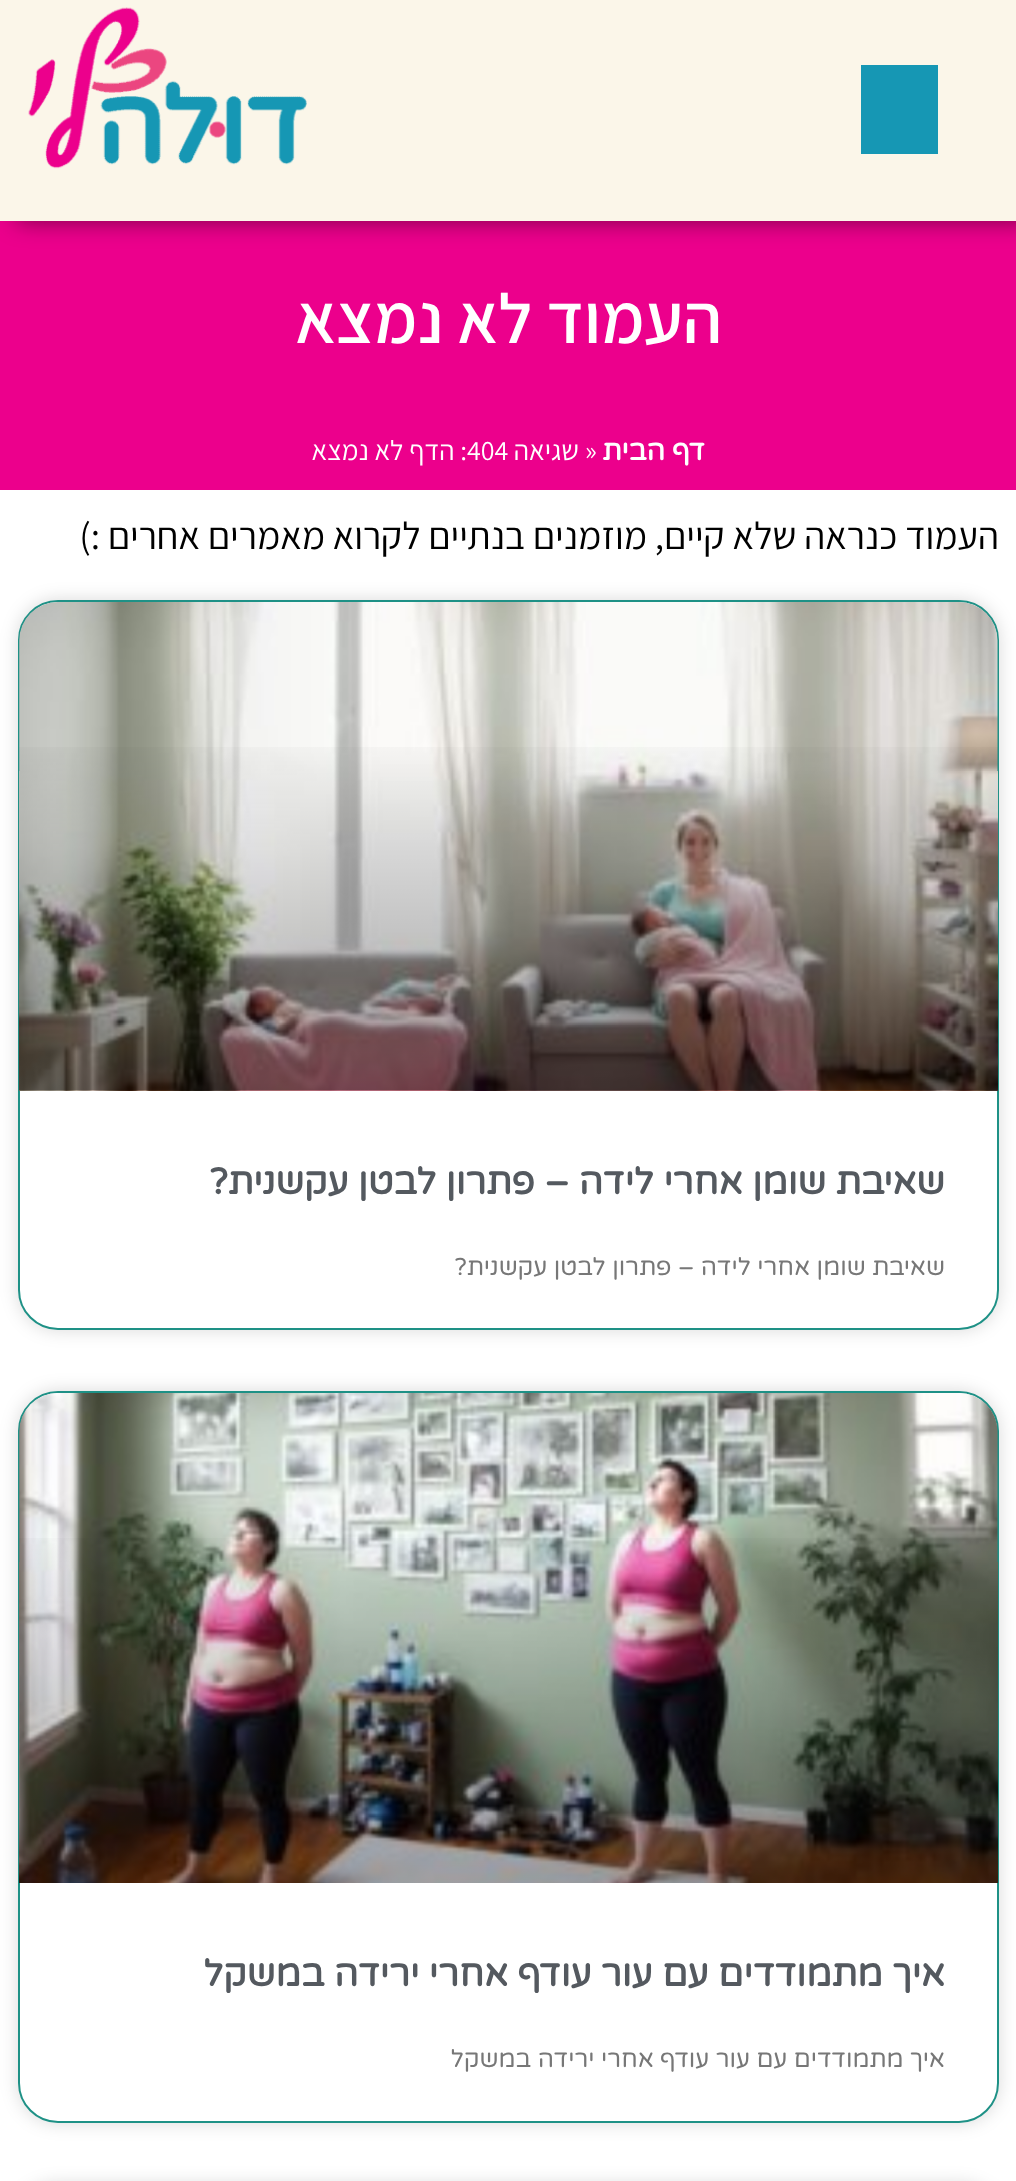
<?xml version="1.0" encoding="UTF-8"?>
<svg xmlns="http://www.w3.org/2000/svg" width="1016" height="2181">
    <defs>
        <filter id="blur1" x="-50%" y="-200%" width="200%" height="500%"><feGaussianBlur stdDeviation="12"/></filter>
        <filter id="blur2" x="-50%" y="-200%" width="200%" height="500%"><feGaussianBlur stdDeviation="9"/></filter>
        <linearGradient id="g1" gradientUnits="userSpaceOnUse" x1="508" y1="1090" x2="508" y2="602"><stop offset="0" stop-color="#000000" stop-opacity="0.35"/><stop offset="0.75" stop-color="#000000" stop-opacity="0"/></linearGradient>
        <linearGradient id="g2" gradientUnits="userSpaceOnUse" x1="508" y1="1883" x2="508" y2="1393"><stop offset="0" stop-color="#000000" stop-opacity="0.35"/><stop offset="0.75" stop-color="#000000" stop-opacity="0"/></linearGradient>
    </defs>
    <rect width="100%" height="100%" fill="#FFFFFF"/>
    <rect x="0" y="221" width="1016" height="269" fill="#EC008C"/>
    <rect x="16" y="0" width="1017" height="221" fill="#000000" fill-opacity="0.5" filter="url(#blur1)"/>
    <rect x="0" y="0" width="1016" height="221" fill="#FBF6E9"/>
    <rect x="861" y="65" width="77" height="89" fill="#1697B4"/>
    <image x="28" y="7" width="279" height="162" href="img_01.png"/>
    <text x="722" y="343" font-family="Assistant" font-size="70" font-weight="600" direction="rtl" fill="#FFFFFF">העמוד לא נמצא</text>
    <text x="705" y="460" font-family="Varela Round" font-size="28" font-weight="700" direction="rtl" fill="#FFFFFF">דף הבית</text>
    <text x="585" y="460" font-family="Assistant" font-size="28" fill="#FFFFFF">»</text>
    <text x="579" y="460" font-family="Assistant" font-size="28" direction="rtl" fill="#FFFFFF">שגיאה</text>
    <text x="467" y="460" font-family="Assistant" font-size="28" fill="#FFFFFF">404</text>
    <text x="467" y="460" font-family="Assistant" font-size="28" direction="rtl" fill="#FFFFFF">: הדף לא נמצא</text>
    <text x="999" y="549" font-family="Assistant" font-size="38.5" direction="rtl" fill="#000000">העמוד כנראה שלא קיים, מוזמנים בנתיים לקרוא מאמרים אחרים :)</text>
    <rect x="18" y="600" width="981" height="730" rx="40" fill="#000000" fill-opacity="0.15" filter="url(#blur2)"/>
    <rect x="19" y="601" width="979" height="728" rx="39" fill="#FFFFFF" stroke="#1E9186" stroke-width="2"/>
    <image x="19" y="602" width="979" height="489" href="img_02.png"/>
    <rect x="19" y="747" width="979" height="343" fill="url(#g1)"/>
    <text x="945" y="1194" font-family="Varela Round" font-size="36.75" font-weight="700" direction="rtl" fill="#54595F">שאיבת שומן אחרי לידה – פתרון לבטן עקשנית?</text>
    <text x="945" y="1275" font-family="Varela Round" font-size="24.5" direction="rtl" fill="#777777">שאיבת שומן אחרי לידה – פתרון לבטן עקשנית?</text>
    <rect x="18" y="1391" width="981" height="732" rx="40" fill="#000000" fill-opacity="0.15" filter="url(#blur2)"/>
    <rect x="19" y="1392" width="979" height="730" rx="39" fill="#FFFFFF" stroke="#1E9186" stroke-width="2"/>
    <image x="19" y="1393" width="979" height="490" href="img_03.png"/>
    <rect x="19" y="1538" width="979" height="345" fill="url(#g2)"/>
    <text x="945" y="1986" font-family="Varela Round" font-size="36.75" font-weight="700" direction="rtl" fill="#54595F">איך מתמודדים עם עור עודף אחרי ירידה במשקל</text>
    <text x="945" y="2067" font-family="Varela Round" font-size="24.5" direction="rtl" fill="#777777">איך מתמודדים עם עור עודף אחרי ירידה במשקל</text>
    <rect x="18" y="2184" width="981" height="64" rx="40" fill="#000000" fill-opacity="0.15" filter="url(#blur2)"/>
</svg>
